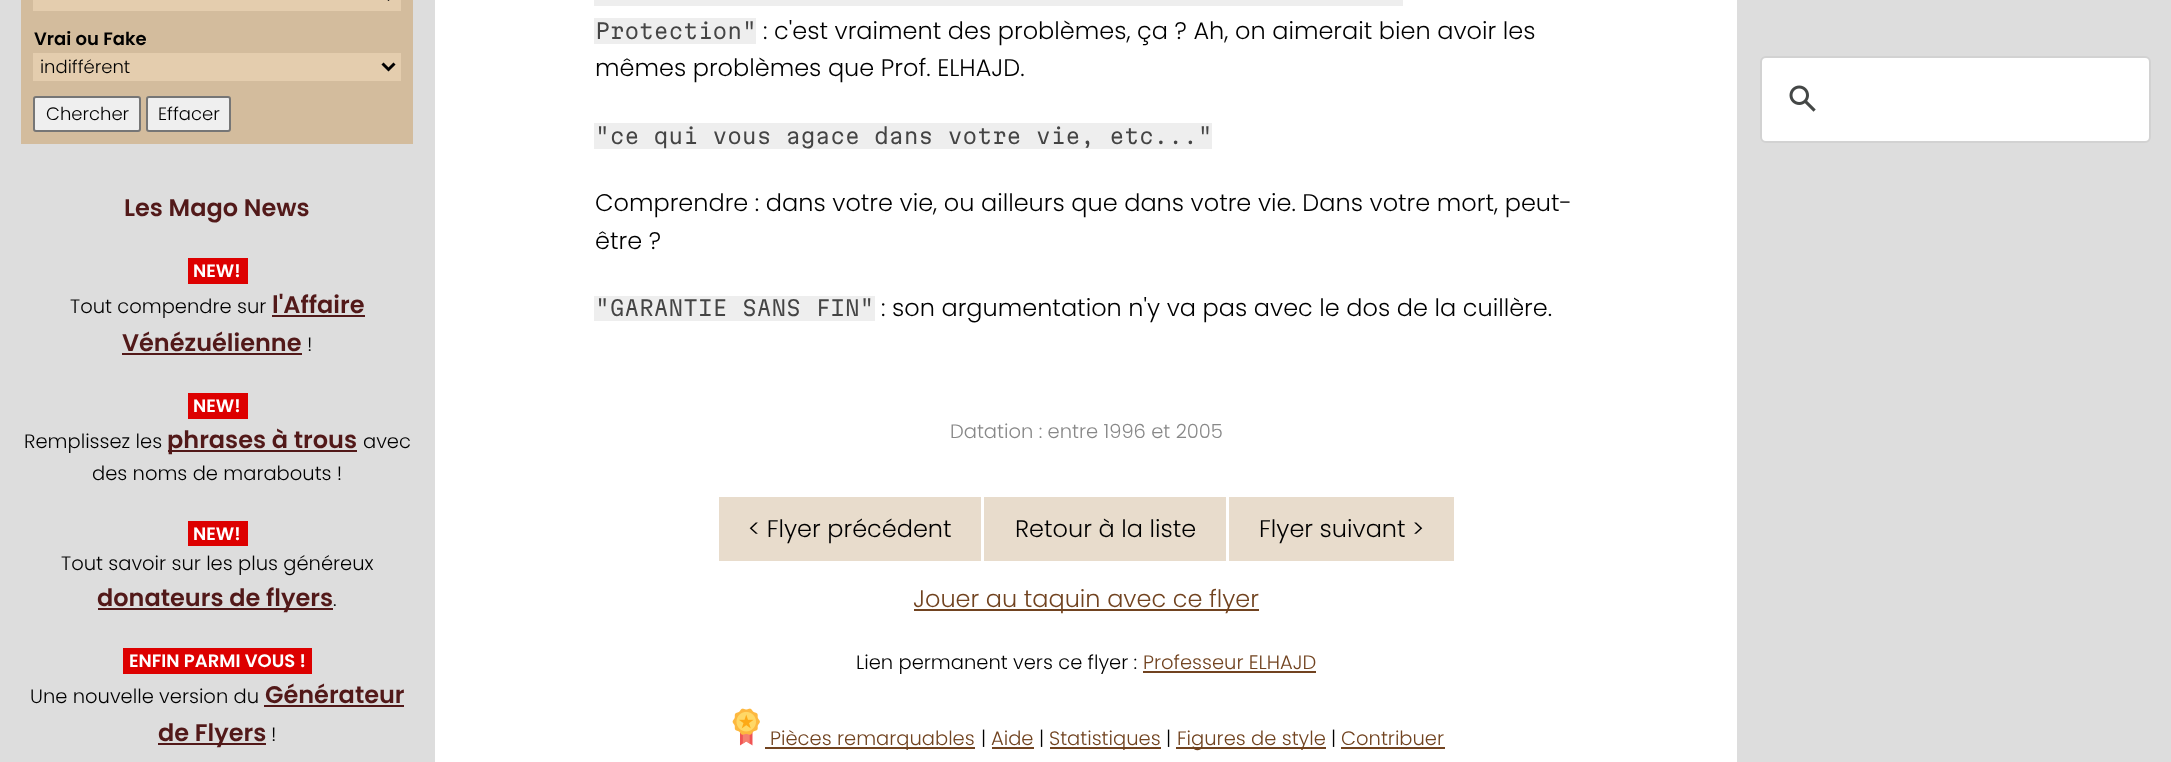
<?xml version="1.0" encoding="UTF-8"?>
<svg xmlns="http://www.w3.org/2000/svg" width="2171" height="762">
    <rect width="100%" height="100%" fill="#DDDDDD"/>
    <rect x="435" y="0" width="1302" height="762" fill="#FFFFFF"/>
    <rect x="21" y="0" width="392" height="144" fill="#D3BC9D"/>
    <rect x="33" y="0" width="368" height="11" fill="#E4CDAE"/>
    <path d="M 382.5 -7 L 388.5 -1 L 394.5 -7" fill="none" stroke="#000000" stroke-width="3"/>
    <text x="34" y="45" font-family="Poppins" font-size="18" font-weight="600" fill="#000000">Vrai ou Fake</text>
    <rect x="33" y="53" width="368" height="28" fill="#E4CDAE"/>
    <path d="M 382.5 63.5 L 388.5 69.5 L 394.5 63.5" fill="none" stroke="#000000" stroke-width="3"/>
    <text x="40" y="73" font-family="Poppins" font-size="18" font-weight="300" fill="#000000">indifférent</text>
    <rect x="34" y="97" width="106" height="34" rx="2" fill="#EFEFEF" stroke="#767676" stroke-width="2"/>
    <text x="46" y="120" font-family="Poppins" font-size="18" font-weight="300" fill="#000000">Chercher</text>
    <rect x="147" y="97" width="83" height="34" rx="2" fill="#EFEFEF" stroke="#767676" stroke-width="2"/>
    <text x="158" y="120" font-family="Poppins" font-size="18" font-weight="300" fill="#000000">Effacer</text>
    <text x="124" y="216" font-family="Poppins" font-size="24" font-weight="600" fill="#521919">Les Mago News</text>
    <rect x="188" y="258" width="60" height="26" fill="#DD0000"/>
    <text x="193" y="277" font-family="Poppins" font-size="18" font-weight="600" fill="#FFFFFF">NEW!</text>
    <text x="70" y="313" font-family="Poppins" font-size="19.5" font-weight="300" fill="#000000">Tout compendre sur</text>
    <text x="272" y="313" font-family="Poppins" font-size="24" font-weight="600" fill="#521919">l'Affaire</text>
    <rect x="272" y="315" width="93" height="2" fill="#521919"/>
    <text x="122" y="351" font-family="Poppins" font-size="24" font-weight="600" fill="#521919">Vénézuélienne</text>
    <rect x="122" y="353" width="180" height="2" fill="#521919"/>
    <text x="307" y="351" font-family="Poppins" font-size="19.5" font-weight="300" fill="#000000">!</text>
    <rect x="188" y="393" width="60" height="26" fill="#DD0000"/>
    <text x="193" y="412" font-family="Poppins" font-size="18" font-weight="600" fill="#FFFFFF">NEW!</text>
    <text x="24" y="448" font-family="Poppins" font-size="19.5" font-weight="300" fill="#000000">Remplissez les</text>
    <rect x="168" y="450" width="189" height="2" fill="#521919"/>
    <text x="167" y="448" font-family="Poppins" font-size="24" font-weight="600" fill="#521919">phrases à trous</text>
    <text x="363" y="448" font-family="Poppins" font-size="19.5" font-weight="300" fill="#000000">avec</text>
    <text x="92" y="480" font-family="Poppins" font-size="19.5" font-weight="300" fill="#000000">des noms de marabouts !</text>
    <rect x="188" y="521" width="60" height="25" fill="#DD0000"/>
    <text x="193" y="540" font-family="Poppins" font-size="18" font-weight="600" fill="#FFFFFF">NEW!</text>
    <text x="61" y="570" font-family="Poppins" font-size="19.5" font-weight="300" fill="#000000">Tout savoir sur les plus généreux</text>
    <rect x="98" y="608" width="235" height="2" fill="#521919"/>
    <text x="97" y="606" font-family="Poppins" font-size="24" font-weight="600" fill="#521919">donateurs de flyers</text>
    <text x="333" y="606" font-family="Poppins" font-size="19.5" font-weight="300" fill="#000000">.</text>
    <rect x="123" y="648" width="189" height="26" fill="#DD0000"/>
    <text x="129" y="667" font-family="Poppins" font-size="18" font-weight="600" fill="#FFFFFF">ENFIN PARMI VOUS !</text>
    <text x="30" y="703" font-family="Poppins" font-size="19.5" font-weight="300" fill="#000000">Une nouvelle version du</text>
    <text x="265" y="703" font-family="Poppins" font-size="24" font-weight="600" fill="#521919">Générateur</text>
    <rect x="264" y="705" width="140" height="2" fill="#521919"/>
    <rect x="158" y="743" width="108" height="2" fill="#521919"/>
    <text x="158" y="741" font-family="Poppins" font-size="24" font-weight="600" fill="#521919">de Flyers</text>
    <text x="271" y="741" font-family="Poppins" font-size="19.5" font-weight="300" fill="#000000">!</text>
    <rect x="594" y="18" width="162" height="26" fill="#EEEEEE"/>
    <text x="595" y="39" font-family="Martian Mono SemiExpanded" font-size="21" font-weight="300" fill="#444444">Protection"</text>
    <rect x="594" y="0" width="809" height="6" fill="#EEEEEE"/>
    <text x="763" y="39" font-family="Poppins" font-size="24" font-weight="300" fill="#000000">: c'est vraiment des problèmes, ça ? Ah, on aimerait bien avoir les</text>
    <text x="595" y="76" font-family="Poppins" font-size="24" font-weight="300" fill="#000000">mêmes problèmes que Prof. ELHAJD.</text>
    <rect x="594" y="123" width="618" height="26" fill="#EEEEEE"/>
    <text x="595" y="144" font-family="Martian Mono SemiExpanded" font-size="21" font-weight="300" fill="#444444">"ce qui vous agace dans votre vie, etc..."</text>
    <text font-family="Poppins" font-size="24" font-weight="300" fill="#000000">
        <tspan x="595" y="211">Comprendre : dans votre vie, ou ailleurs que dans votre vie. Dans votre mort, peut-</tspan>
        <tspan x="595" y="249">être ?</tspan>
    </text>
    <rect x="594" y="296" width="281" height="25" fill="#EEEEEE"/>
    <text x="595" y="316" font-family="Martian Mono SemiExpanded" font-size="21" font-weight="300" fill="#444444">"GARANTIE SANS FIN"</text>
    <text x="881" y="316" font-family="Poppins" font-size="24" font-weight="300" fill="#000000">: son argumentation n'y va pas avec le dos de la cuillère.</text>
    <text x="950" y="438" font-family="Poppins" font-size="19.5" font-weight="300" fill="#888888">Datation : entre 1996 et 2005</text>
    <rect x="719" y="497" width="262" height="64" fill="#E8DCCC"/>
    <text x="748" y="537" font-family="Poppins" font-size="24" font-weight="300" fill="#000000">&lt; Flyer précédent</text>
    <rect x="984" y="497" width="242" height="64" fill="#E8DCCC"/>
    <text x="1015" y="537" font-family="Poppins" font-size="24" font-weight="300" fill="#000000">Retour à la liste</text>
    <rect x="1229" y="497" width="225" height="64" fill="#E8DCCC"/>
    <text x="1259" y="537" font-family="Poppins" font-size="24" font-weight="300" fill="#000000">Flyer suivant &gt;</text>
    <rect x="914" y="609" width="345" height="2" fill="#714320"/>
    <text x="913" y="607" font-family="Poppins" font-size="24" font-weight="300" fill="#714320">Jouer au taquin avec ce flyer</text>
    <text x="856" y="669" font-family="Poppins" font-size="19.5" font-weight="300" fill="#000000">Lien permanent vers ce flyer :</text>
    <text x="1143" y="669" font-family="Poppins" font-size="19.5" font-weight="300" fill="#714320">Professeur ELHAJD</text>
    <rect x="1143" y="671" width="173" height="2" fill="#714320"/>
    <image x="732" y="708" width="28" height="38" href="img_01.png"/>
    <rect x="765" y="747" width="210" height="2" fill="#714320"/>
    <text x="770" y="745" font-family="Poppins" font-size="19.5" font-weight="300" fill="#714320">Pièces remarquables</text>
    <text x="981" y="745" font-family="Poppins" font-size="19.5" font-weight="300" fill="#000000">|</text>
    <text x="991" y="745" font-family="Poppins" font-size="19.5" font-weight="300" fill="#714320">Aide</text>
    <rect x="992" y="747" width="42" height="2" fill="#714320"/>
    <text x="1039" y="745" font-family="Poppins" font-size="19.5" font-weight="300" fill="#000000">|</text>
    <rect x="1050" y="747" width="111" height="2" fill="#714320"/>
    <text x="1049" y="745" font-family="Poppins" font-size="19.5" font-weight="300" fill="#714320">Statistiques</text>
    <text x="1166" y="745" font-family="Poppins" font-size="19.5" font-weight="300" fill="#000000">|</text>
    <rect x="1176" y="747" width="150" height="2" fill="#714320"/>
    <text x="1177" y="745" font-family="Poppins" font-size="19.5" font-weight="300" fill="#714320">Figures de style</text>
    <text x="1331" y="745" font-family="Poppins" font-size="19.5" font-weight="300" fill="#000000">|</text>
    <text x="1341" y="745" font-family="Poppins" font-size="19.5" font-weight="300" fill="#714320">Contribuer</text>
    <rect x="1341" y="747" width="104" height="2" fill="#714320"/>
    <rect x="1761" y="57" width="389" height="85" rx="5" fill="#FFFFFF" stroke="#D2D2D2" stroke-width="2"/>
    <image x="1789" y="85" width="27" height="27" href="img_02.png"/>
</svg>
